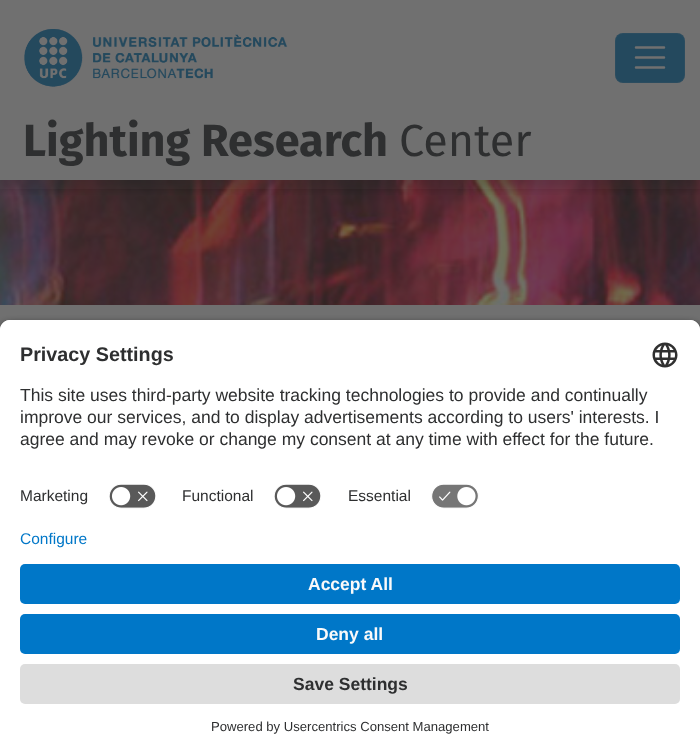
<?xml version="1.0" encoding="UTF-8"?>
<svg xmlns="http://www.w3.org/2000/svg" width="700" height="753">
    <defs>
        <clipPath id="clip1"><rect x="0" y="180" width="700" height="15"/></clipPath>
        <filter id="blur1" x="-50%" y="-200%" width="200%" height="500%"><feGaussianBlur stdDeviation="5"/></filter>
        <filter id="blur2" x="-50%" y="-200%" width="200%" height="500%"><feGaussianBlur stdDeviation="4.5"/></filter>
    </defs>
    <rect width="100%" height="100%" fill="#707070"/>
    <image x="24" y="29" width="264" height="58" href="img_01.png"/>
    <rect x="615" y="33" width="70" height="50" rx="8" fill="#24495E"/>
    <rect x="615.5" y="33.5" width="69" height="49" rx="7.5" fill="none" stroke="#707070" stroke-opacity="0.1"/>
    <path d="M 636 47.5 H 664 M 636 57.5 H 664 M 636 67.5 H 664" fill="none" stroke="#707070" stroke-width="2.5" stroke-linecap="round"/>
    <image x="0" y="180" width="700" height="125" href="img_02.png"/>
    <g clip-path="url(#clip1)">
        <rect x="0" y="124" width="700" height="65" fill="#242424" fill-opacity="0.2" filter="url(#blur1)"/>
    </g>
    <text x="23" y="156" font-family="Fira Sans" font-size="45" font-weight="700" fill="#2E2F30">Lighting Research</text>
    <text x="399" y="156" font-family="Fira Sans" font-size="45" fill="#2E2F30">Center</text>
    <rect x="0" y="324" width="700" height="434" rx="10" fill="#000000" fill-opacity="0.8" filter="url(#blur2)"/>
    <path d="M 10 320 H 690 C 695.5 320 700 324.5 700 330 V 531 H 0 V 330 C 0 324.5 4.5 320 10 320 Z" fill="#FFFFFF"/>
    <path d="M 10 320 H 690 C 695.5 320 700 324.5 700 330 V 476 H 0 V 330 C 0 324.5 4.5 320 10 320 Z" fill="#FFFFFF"/>
    <text x="20" y="361" font-family="Liberation Sans" font-size="19.75" font-weight="700" fill="#2E2F30">Privacy Settings</text>
    <image x="652" y="342" width="26" height="26" href="img_03.png"/>
    <text font-family="Liberation Sans" font-size="17.5" fill="#2E2F30">
        <tspan x="20" y="401">This site uses third-party website tracking technologies to provide and continually</tspan>
        <tspan x="20" y="423">improve our services, and to display advertisements according to users' interests. I</tspan>
        <tspan x="20" y="445">agree and may revoke or change my consent at any time with effect for the future.</tspan>
    </text>
    <text x="20" y="501" font-family="Liberation Sans" font-size="15.5" fill="#2E2F30">Marketing</text>
    <image x="109" y="484" width="47" height="25" href="img_04.png"/>
    <text x="182" y="501" font-family="Liberation Sans" font-size="15.5" fill="#2E2F30">Functional</text>
    <image x="274" y="484" width="47" height="25" href="img_04.png"/>
    <text x="348" y="501" font-family="Liberation Sans" font-size="15.5" fill="#2E2F30">Essential</text>
    <image x="431" y="484" width="48" height="25" href="img_05.png"/>
    <rect x="0" y="531" width="700" height="222" fill="#FFFFFF"/>
    <text x="20" y="544" font-family="Liberation Sans" font-size="15.5" fill="#0077C8">Configure</text>
    <rect x="20" y="564" width="660" height="40" rx="5" fill="#0077C8"/>
    <text x="308" y="590" font-family="Liberation Sans" font-size="17.5" font-weight="700" fill="#FAFAFA">Accept All</text>
    <rect x="20" y="614" width="660" height="40" rx="5" fill="#0077C8"/>
    <text x="316" y="640" font-family="Liberation Sans" font-size="17.5" font-weight="700" fill="#FAFAFA">Deny all</text>
    <rect x="20" y="664" width="660" height="40" rx="5" fill="#DDDDDD"/>
    <text x="293" y="690" font-family="Liberation Sans" font-size="17.5" font-weight="700" fill="#2E2F30">Save Settings</text>
    <text x="211" y="731" font-family="Liberation Sans" font-size="13.1" fill="#2E2F30">Powered by Usercentrics Consent Management</text>
</svg>
